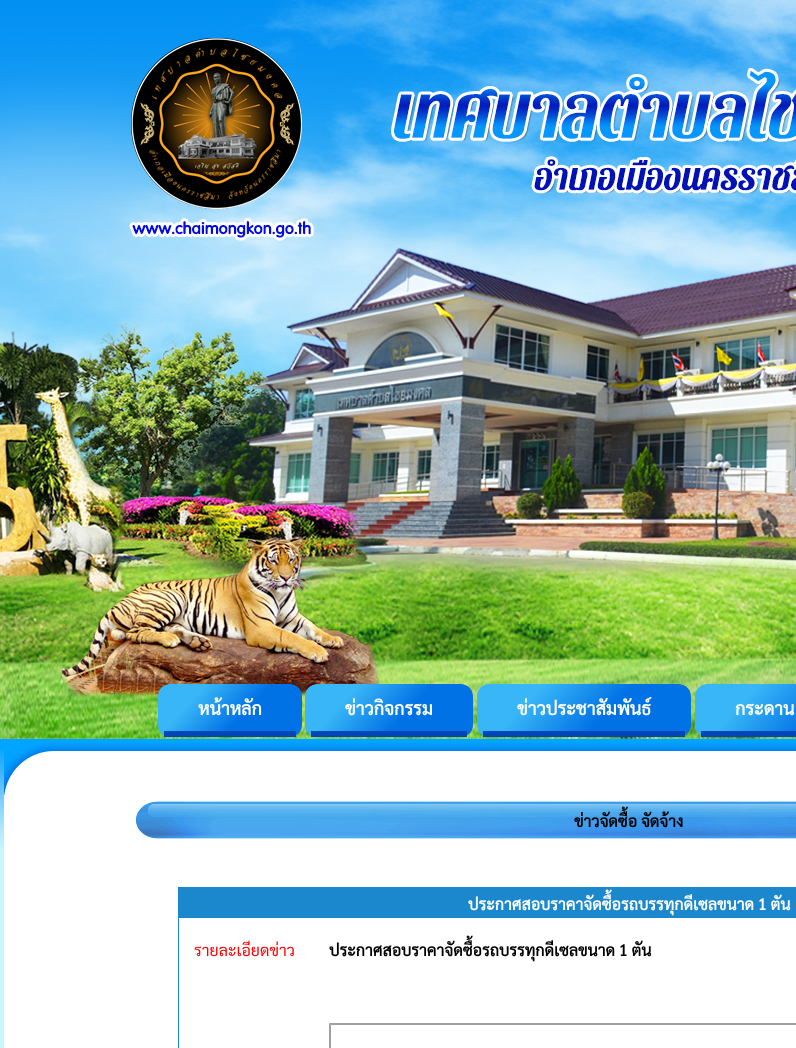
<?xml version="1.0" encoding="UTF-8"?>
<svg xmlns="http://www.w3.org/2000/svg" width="796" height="1048">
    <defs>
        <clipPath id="clip1"><rect x="158" y="684" width="144" height="53" rx="12"/></clipPath>
        <linearGradient id="g1" gradientUnits="userSpaceOnUse" x1="180" y1="661" x2="280" y2="754"><stop offset="0.26" stop-color="#38B6F7"/><stop offset="0.61" stop-color="#0171E6"/></linearGradient>
        <linearGradient id="g2" gradientUnits="userSpaceOnUse" x1="180" y1="708" x2="280" y2="801"><stop offset="0.26" stop-color="#38B6F7"/><stop offset="0.61" stop-color="#0171E6"/></linearGradient>
        <clipPath id="clip2"><rect x="305" y="684" width="168" height="53" rx="12"/></clipPath>
        <linearGradient id="g3" gradientUnits="userSpaceOnUse" x1="332" y1="655" x2="446" y2="760"><stop offset="0.26" stop-color="#38B6F7"/><stop offset="0.61" stop-color="#0171E6"/></linearGradient>
        <linearGradient id="g4" gradientUnits="userSpaceOnUse" x1="332" y1="702" x2="446" y2="807"><stop offset="0.26" stop-color="#38B6F7"/><stop offset="0.61" stop-color="#0171E6"/></linearGradient>
        <clipPath id="clip3"><rect x="477" y="684" width="214" height="53" rx="12"/></clipPath>
        <linearGradient id="g5" gradientUnits="userSpaceOnUse" x1="515" y1="643" x2="653" y2="772"><stop offset="0.26" stop-color="#38B6F7"/><stop offset="0.61" stop-color="#0171E6"/></linearGradient>
        <linearGradient id="g6" gradientUnits="userSpaceOnUse" x1="515" y1="690" x2="653" y2="819"><stop offset="0.26" stop-color="#38B6F7"/><stop offset="0.61" stop-color="#0171E6"/></linearGradient>
        <clipPath id="clip4"><rect x="695" y="684" width="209" height="53" rx="12"/></clipPath>
        <linearGradient id="g7" gradientUnits="userSpaceOnUse" x1="732" y1="644" x2="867" y2="771"><stop offset="0.26" stop-color="#38B6F7"/><stop offset="0.61" stop-color="#0171E6"/></linearGradient>
        <linearGradient id="g8" gradientUnits="userSpaceOnUse" x1="732" y1="691" x2="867" y2="818"><stop offset="0.26" stop-color="#38B6F7"/><stop offset="0.61" stop-color="#0171E6"/></linearGradient>
    </defs>
    <rect width="100%" height="100%" fill="#C8F7FE"/>
    <image x="0" y="0" width="4" height="739" href="img_01.png"/>
    <image x="4" y="0" width="792" height="739" href="img_02.png"/>
    <g clip-path="url(#clip1)">
        <path d="M 170 684 H 290 C 296.5 684 302 689.5 302 696 V 731 H 158 V 696 C 158 689.5 163.5 684 170 684 Z" fill="url(#g1)"/>
        <rect x="158" y="731" width="144" height="5" fill="url(#g2)"/>
    </g>
    <rect x="164" y="731" width="132" height="6" fill="#0146B8"/>
    <text x="198" y="715" font-family="Sarabun" font-size="18" font-weight="700" fill="#FFFFFF">หน้าหลัก</text>
    <g clip-path="url(#clip2)">
        <path d="M 317 684 H 461 C 467.5 684 473 689.5 473 696 V 731 H 305 V 696 C 305 689.5 310.5 684 317 684 Z" fill="url(#g3)"/>
        <rect x="305" y="731" width="168" height="5" fill="url(#g4)"/>
    </g>
    <rect x="311" y="731" width="156" height="6" fill="#0146B8"/>
    <text x="345" y="715" font-family="Sarabun" font-size="18" font-weight="700" fill="#FFFFFF">ข่าวกิจกรรม</text>
    <g clip-path="url(#clip3)">
        <path d="M 489 684 H 679 C 685.5 684 691 689.5 691 696 V 731 H 477 V 696 C 477 689.5 482.5 684 489 684 Z" fill="url(#g5)"/>
        <rect x="477" y="731" width="214" height="5" fill="url(#g6)"/>
    </g>
    <rect x="483" y="731" width="202" height="6" fill="#0146B8"/>
    <text x="517" y="715" font-family="Sarabun" font-size="18" font-weight="700" fill="#FFFFFF">ข่าวประชาสัมพันธ์</text>
    <g clip-path="url(#clip4)">
        <path d="M 707 684 H 796 C 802.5 684 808 689.5 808 696 V 731 H 695 V 696 C 695 689.5 700.5 684 707 684 Z" fill="url(#g7)"/>
        <rect x="695" y="731" width="6" height="5" fill="url(#g8)"/>
    </g>
    <rect x="701" y="731" width="95" height="6" fill="#0146B8"/>
    <text x="735" y="715" font-family="Sarabun" font-size="18" font-weight="700" fill="#FFFFFF">กระดาน</text>
    <image x="0" y="739" width="4" height="109" href="img_03.png"/>
    <image x="4" y="739" width="792" height="56" href="img_04.png"/>
    <rect x="4" y="795" width="792" height="253" fill="#FFFFFF"/>
    <image x="135" y="801" width="661" height="38" href="img_05.png"/>
    <text x="574" y="827" font-family="Sarabun" font-size="16" font-weight="700" fill="#000000">ข่าวจัดซื้อ จัดจ้าง</text>
    <rect x="178" y="887" width="618" height="161" fill="#1B87CD"/>
    <text x="468" y="910" font-family="Sarabun" font-size="16" font-weight="700" fill="#FFFFFF">ประกาศสอบราคาจัดซื้อรถบรรทุกดีเซลขนาด 1 ตัน</text>
    <rect x="179" y="918" width="617" height="84" fill="#FFFFFF"/>
    <text x="194" y="956" font-family="Sarabun" font-size="16" fill="#FF0000">รายละเอียดข่าว</text>
    <text x="329" y="956" font-family="Sarabun" font-size="16" font-weight="700" fill="#000000">ประกาศสอบราคาจัดซื้อรถบรรทุกดีเซลขนาด 1 ตัน</text>
    <rect x="179" y="1002" width="617" height="46" fill="#FFFFFF"/>
    <path d="M 329 1023 H 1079 L 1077 1025 H 331 Z" fill="#9F9F9F"/>
    <path d="M 329 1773 V 1023 L 331 1025 V 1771 Z" fill="#9F9F9F"/>
</svg>
